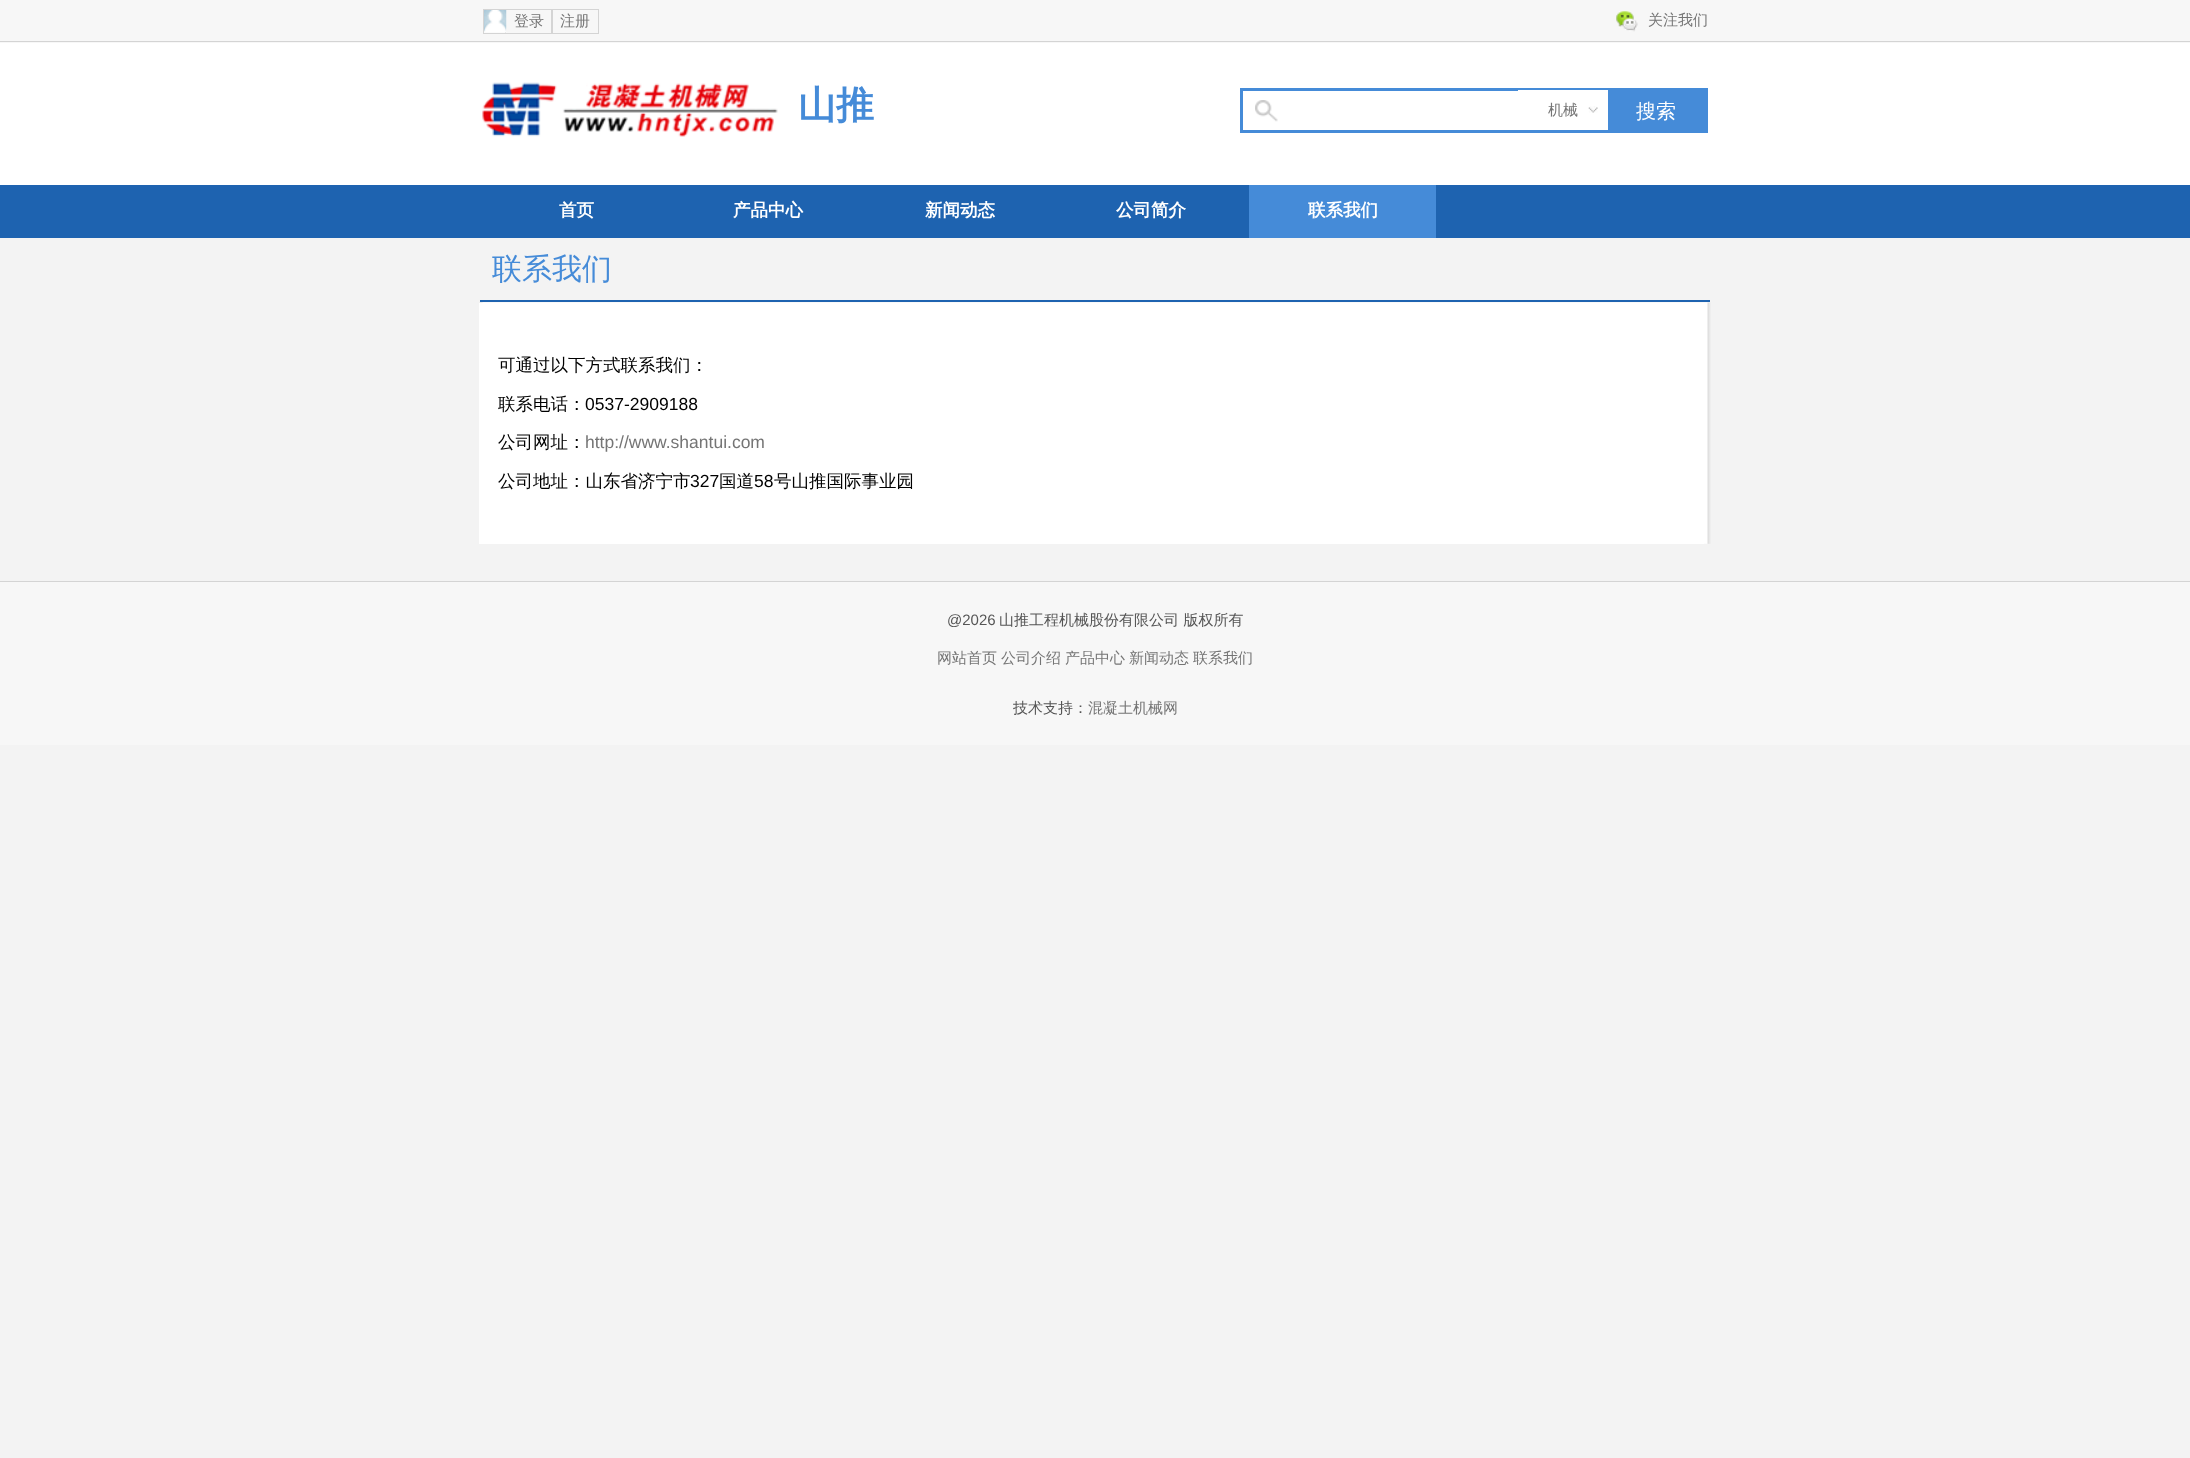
<?xml version="1.0" encoding="UTF-8"?>
<svg xmlns="http://www.w3.org/2000/svg" width="2190" height="1458">
    <rect width="100%" height="100%" fill="#F3F3F3"/>
    <rect x="0" y="0" width="2190" height="43" fill="#F7F7F7"/>
    <rect x="0" y="41" width="2190" height="1" fill="#D4D4D4"/>
    <rect x="505.5" y="9.5" width="47" height="24" fill="none" stroke="#D4D4D4"/>
    <image x="484" y="10" width="23" height="23" href="img_01.png"/>
    <rect x="483" y="9" width="23" height="1" fill="#D4D4D4"/>
    <rect x="483" y="33" width="23" height="1" fill="#D4D4D4"/>
    <rect x="483" y="9" width="1" height="25" fill="#D4D4D4"/>
    <text x="514" y="26" font-family="WenQuanYi Zen Hei" font-size="15" font-weight="500" fill="#757575">登录</text>
    <rect x="551.5" y="9.5" width="47" height="24" fill="none" stroke="#D4D4D4"/>
    <text x="560" y="26" font-family="WenQuanYi Zen Hei" font-size="15" font-weight="500" fill="#757575">注册</text>
    <image x="1616" y="11" width="22" height="21" href="img_02.png"/>
    <text x="1648" y="25" font-family="WenQuanYi Zen Hei" font-size="15" font-weight="500" fill="#757575">关注我们</text>
    <rect x="0" y="43" width="2190" height="142" fill="#FFFFFF"/>
    <image x="482" y="82" width="296" height="55" href="img_03.png"/>
    <text x="798" y="118" font-family="WenQuanYi Zen Hei" font-size="38" font-weight="700" fill="#458BD8">山推</text>
    <rect x="1241.5" y="89.5" width="465" height="42" fill="none" stroke="#458BD8" stroke-width="3"/>
    <image x="1255" y="100" width="23" height="22" href="img_04.png"/>
    <rect x="1518" y="90" width="90" height="1" fill="#FFFFFF"/>
    <image x="1588" y="106" width="10" height="7" href="img_05.png"/>
    <text x="1548" y="115" font-family="WenQuanYi Zen Hei" font-size="15" font-weight="500" fill="#757575">机械</text>
    <rect x="1608" y="91" width="97" height="39" fill="#458BD8"/>
    <text x="1636" y="118" font-family="WenQuanYi Zen Hei" font-size="20" font-weight="500" fill="#FFFFFF">搜索</text>
    <rect x="0" y="185" width="2190" height="53" fill="#1E63B0"/>
    <text x="559" y="216" font-family="WenQuanYi Zen Hei" font-size="17.5" font-weight="700" fill="#FFFFFF">首页</text>
    <text x="733" y="216" font-family="WenQuanYi Zen Hei" font-size="17.5" font-weight="700" fill="#FFFFFF">产品中心</text>
    <text x="925" y="216" font-family="WenQuanYi Zen Hei" font-size="17.5" font-weight="700" fill="#FFFFFF">新闻动态</text>
    <text x="1116" y="216" font-family="WenQuanYi Zen Hei" font-size="17.5" font-weight="700" fill="#FFFFFF">公司简介</text>
    <rect x="1249" y="185" width="187" height="53" fill="#458BD8"/>
    <text x="1308" y="216" font-family="WenQuanYi Zen Hei" font-size="17.5" font-weight="700" fill="#FFFFFF">联系我们</text>
    <text x="492" y="279" font-family="WenQuanYi Zen Hei" font-size="30" font-weight="500" fill="#458BD8">联系我们</text>
    <rect x="480" y="300" width="1230" height="2" fill="#1E63B0"/>
    <image x="479" y="302" width="1232" height="242" href="img_06.png"/>
    <rect x="479" y="303" width="1225" height="241" fill="#FFFFFF"/>
    <text x="498" y="371" font-family="WenQuanYi Zen Hei" font-size="17.5" font-weight="500" fill="#000000">可通过以下方式联系我们：</text>
    <text x="498" y="410" font-family="WenQuanYi Zen Hei" font-size="17.5" font-weight="500" fill="#000000">联系电话：</text>
    <text x="585" y="410" font-family="Liberation Sans" font-size="17.5" fill="#000000">0537-2909188</text>
    <text x="498" y="448" font-family="WenQuanYi Zen Hei" font-size="17.5" font-weight="500" fill="#000000">公司网址：</text>
    <text x="585" y="448" font-family="Liberation Sans" font-size="17.5" fill="#757575">http://www.shantui.com</text>
    <text x="498" y="487" font-family="WenQuanYi Zen Hei" font-size="17.5" font-weight="500" fill="#000000">公司地址：山东省济宁市</text>
    <text x="690" y="487" font-family="Liberation Sans" font-size="17.5" fill="#000000">327</text>
    <text x="719" y="487" font-family="WenQuanYi Zen Hei" font-size="17.5" font-weight="500" fill="#000000">国道</text>
    <text x="754" y="487" font-family="Liberation Sans" font-size="17.5" fill="#000000">58</text>
    <text x="774" y="487" font-family="WenQuanYi Zen Hei" font-size="17.5" font-weight="500" fill="#000000">号山推国际事业园</text>
    <rect x="0" y="582" width="2190" height="163" fill="#F7F7F7"/>
    <rect x="0" y="581" width="2190" height="1" fill="#D4D4D4"/>
    <text x="947" y="625" font-family="Liberation Sans" font-size="15" fill="#555555">@2026</text>
    <text x="999" y="625" font-family="WenQuanYi Zen Hei" font-size="15" font-weight="500" fill="#555555">山推工程机械股份有限公司 版权所有</text>
    <text x="937" y="663" font-family="WenQuanYi Zen Hei" font-size="15" font-weight="500" fill="#757575">网站首页</text>
    <text x="1001" y="663" font-family="WenQuanYi Zen Hei" font-size="15" font-weight="500" fill="#757575">公司介绍</text>
    <text x="1065" y="663" font-family="WenQuanYi Zen Hei" font-size="15" font-weight="500" fill="#757575">产品中心</text>
    <text x="1129" y="663" font-family="WenQuanYi Zen Hei" font-size="15" font-weight="500" fill="#757575">新闻动态</text>
    <text x="1193" y="663" font-family="WenQuanYi Zen Hei" font-size="15" font-weight="500" fill="#757575">联系我们</text>
    <text x="1013" y="713" font-family="WenQuanYi Zen Hei" font-size="15" font-weight="500" fill="#555555">技术支持：</text>
    <text x="1088" y="713" font-family="WenQuanYi Zen Hei" font-size="15" font-weight="500" fill="#757575">混凝土机械网</text>
</svg>
